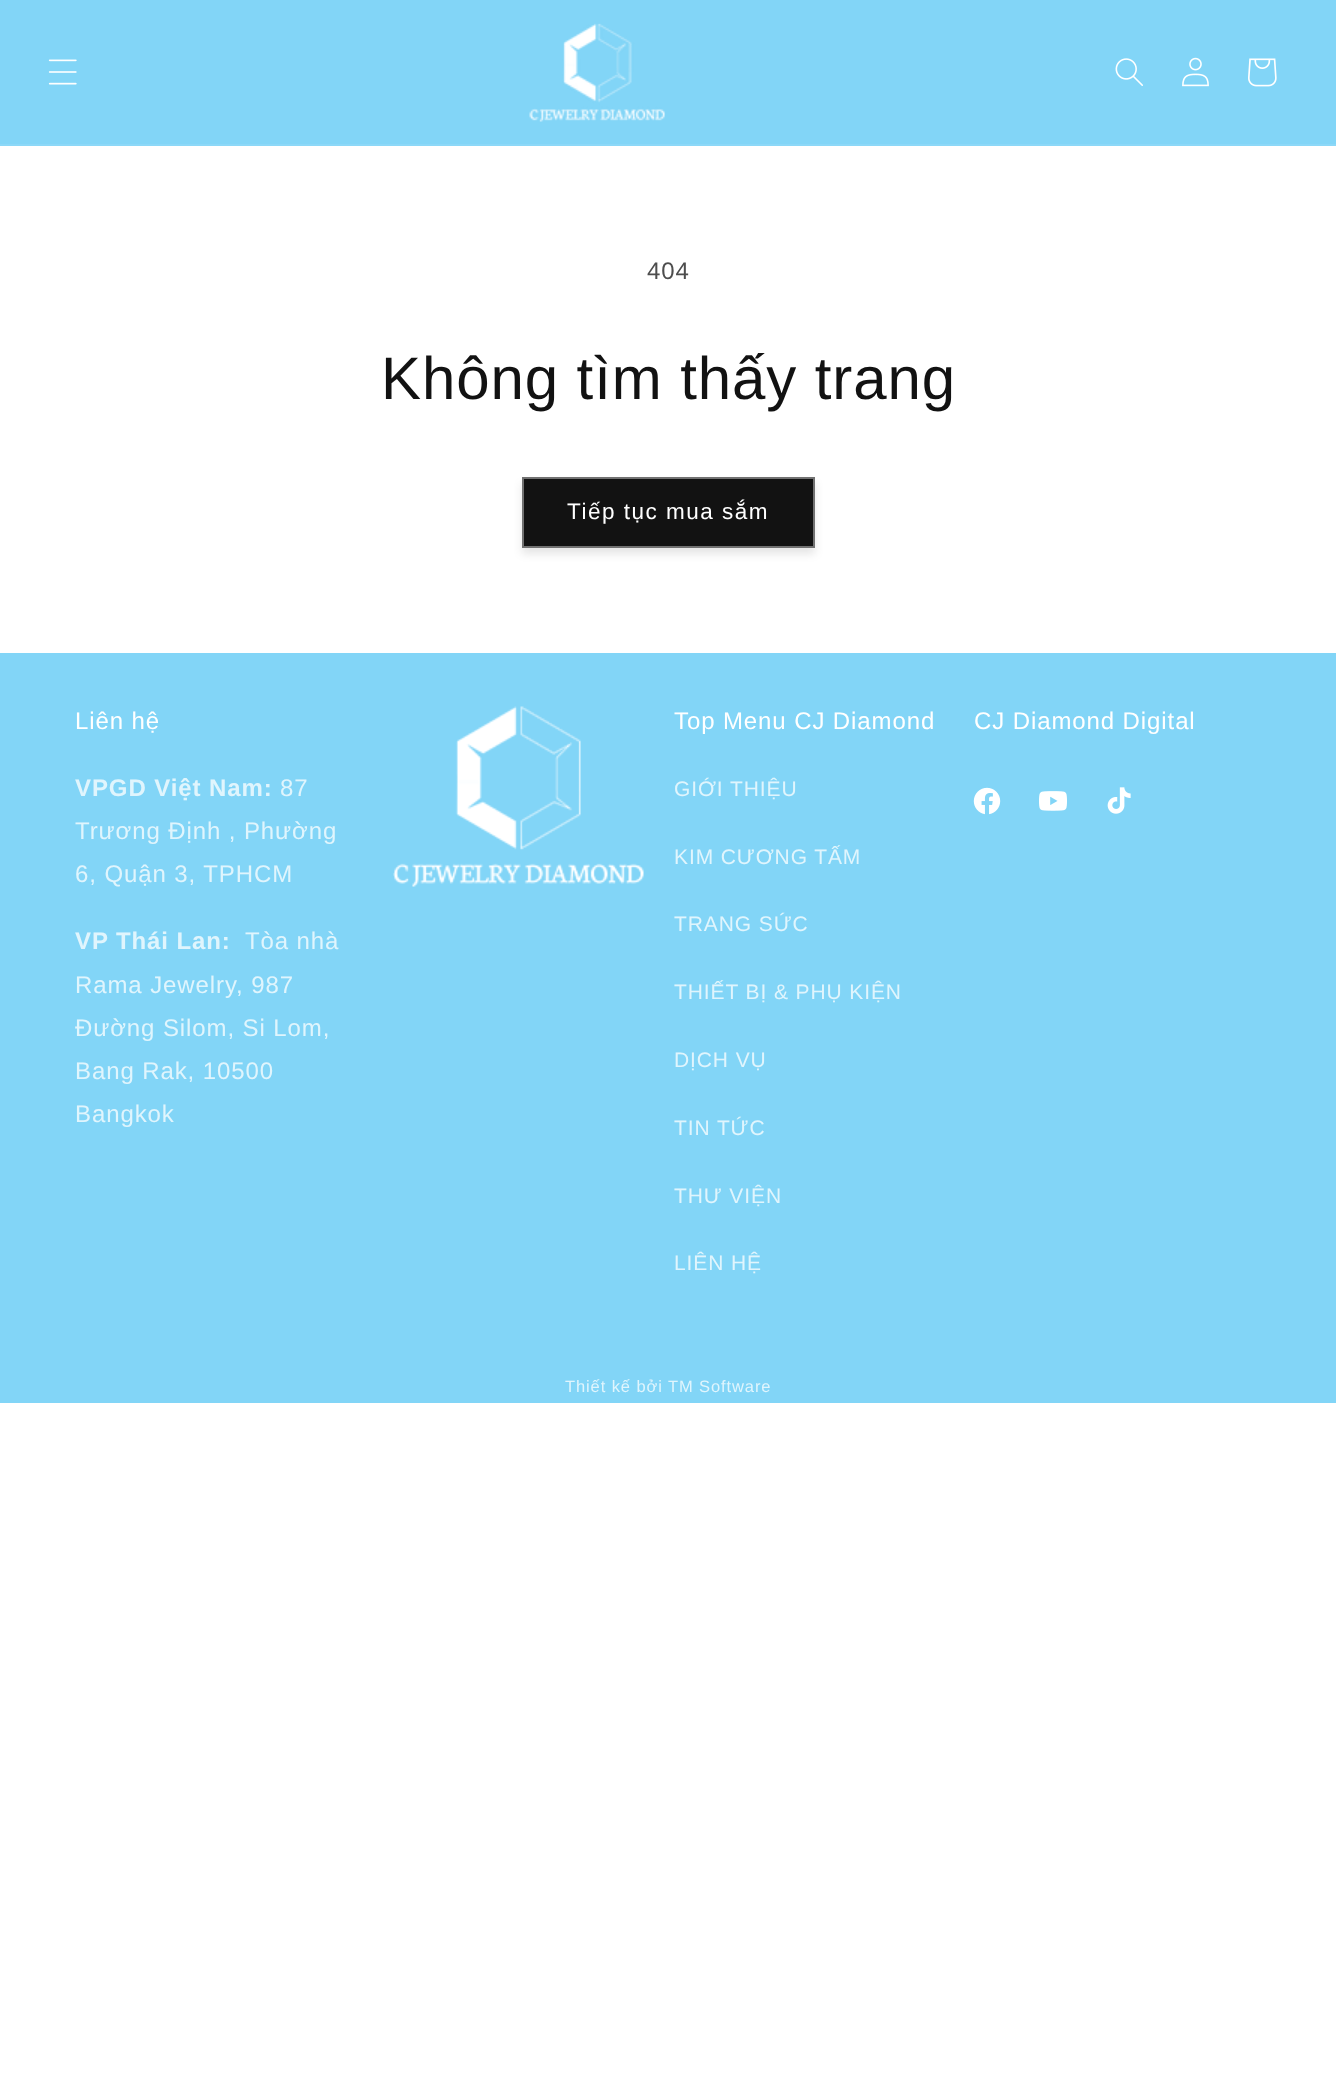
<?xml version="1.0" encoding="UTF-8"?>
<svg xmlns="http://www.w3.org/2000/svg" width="1336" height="2095">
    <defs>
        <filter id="blur1" x="-50%" y="-200%" width="200%" height="500%"><feGaussianBlur stdDeviation="4"/></filter>
    </defs>
    <rect width="100%" height="100%" fill="#FFFFFF"/>
    <rect x="0" y="0" width="1336" height="144" fill="#82D5F7"/>
    <rect x="0" y="144" width="1336" height="2" fill="#8CD8F8"/>
    <image x="48" y="59" width="29" height="26" href="img_01.png"/>
    <image x="529" y="23" width="136" height="99" href="img_02.png"/>
    <image x="1115" y="58" width="28" height="28" href="img_03.png"/>
    <image x="1182" y="57" width="27" height="30" href="img_04.png"/>
    <image x="1248" y="58" width="29" height="29" href="img_05.png"/>
    <text x="647" y="279" font-family="Liberation Sans" font-size="24" letter-spacing="0.9" fill="#4D4D4D">404</text>
    <text x="381" y="399" font-family="Liberation Sans" font-size="60" letter-spacing="0.9" fill="#121212">Không tìm thấy trang</text>
    <rect x="522" y="483" width="293" height="71" fill="#121212" fill-opacity="0.1" filter="url(#blur1)"/>
    <rect x="524" y="479" width="289" height="67" fill="#121212"/>
    <rect x="523" y="478" width="291" height="69" fill="none" stroke="#717171" stroke-width="2"/>
    <text x="567" y="519" font-family="Liberation Sans" font-size="22.5" letter-spacing="1.5" fill="#FFFFFF">Tiếp tục mua sắm</text>
    <rect x="0" y="653" width="1336" height="750" fill="#82D5F7"/>
    <text x="75" y="729" font-family="Liberation Sans" font-size="24" letter-spacing="0.9" fill="#FFFFFF">Liên hệ</text>
    <text x="75" y="796" font-family="Liberation Sans" font-size="24" font-weight="700" letter-spacing="0.9" fill="#E0F5FD">VPGD Việt Nam:</text>
    <text x="280" y="796" font-family="Liberation Sans" font-size="24" letter-spacing="0.9" fill="#E0F5FD">87</text>
    <text font-family="Liberation Sans" font-size="24" letter-spacing="0.9" fill="#E0F5FD">
        <tspan x="75" y="839">Trương Định , Phường</tspan>
        <tspan x="75" y="882">6, Quận 3, TPHCM</tspan>
    </text>
    <text x="75" y="949" font-family="Liberation Sans" font-size="24" font-weight="700" letter-spacing="0.9" fill="#E0F5FD">VP Thái Lan:</text>
    <text x="245" y="949" font-family="Liberation Sans" font-size="24" letter-spacing="0.9" fill="#E0F5FD">Tòa nhà</text>
    <text font-family="Liberation Sans" font-size="24" letter-spacing="0.9" fill="#E0F5FD">
        <tspan x="75" y="993">Rama Jewelry, 987</tspan>
        <tspan x="75" y="1036">Đường Silom, Si Lom,</tspan>
        <tspan x="75" y="1079">Bang Rak, 10500</tspan>
        <tspan x="75" y="1122">Bangkok</tspan>
    </text>
    <image x="393" y="706" width="251" height="181" href="img_06.png"/>
    <text x="674" y="729" font-family="Liberation Sans" font-size="24" letter-spacing="0.9" fill="#FFFFFF">Top Menu CJ Diamond</text>
    <text x="674" y="796" font-family="Liberation Sans" font-size="21" letter-spacing="0.9" fill="#E0F5FD">GIỚI THIỆU</text>
    <text x="674" y="864" font-family="Liberation Sans" font-size="21" letter-spacing="0.9" fill="#E0F5FD">KIM CƯƠNG TẤM</text>
    <text x="674" y="931" font-family="Liberation Sans" font-size="21" letter-spacing="0.9" fill="#E0F5FD">TRANG SỨC</text>
    <text x="674" y="999" font-family="Liberation Sans" font-size="21" letter-spacing="0.9" fill="#E0F5FD">THIẾT BỊ &amp; PHỤ KIỆN</text>
    <text x="674" y="1067" font-family="Liberation Sans" font-size="21" letter-spacing="0.9" fill="#E0F5FD">DỊCH VỤ</text>
    <text x="674" y="1135" font-family="Liberation Sans" font-size="21" letter-spacing="0.9" fill="#E0F5FD">TIN TỨC</text>
    <text x="674" y="1203" font-family="Liberation Sans" font-size="21" letter-spacing="0.9" fill="#E0F5FD">THƯ VIỆN</text>
    <text x="674" y="1270" font-family="Liberation Sans" font-size="21" letter-spacing="0.9" fill="#E0F5FD">LIÊN HỆ</text>
    <text x="974" y="729" font-family="Liberation Sans" font-size="24" letter-spacing="0.9" fill="#FFFFFF">CJ Diamond Digital</text>
    <image x="973" y="787" width="28" height="28" href="img_07.png"/>
    <image x="1039" y="791" width="28" height="20" href="img_08.png"/>
    <image x="1107" y="787" width="24" height="27" href="img_09.png"/>
    <text x="565" y="1392" font-family="Liberation Sans" font-size="16.5" letter-spacing="0.9" fill="#E0F5FD">Thiết kế bởi TM Software</text>
</svg>
